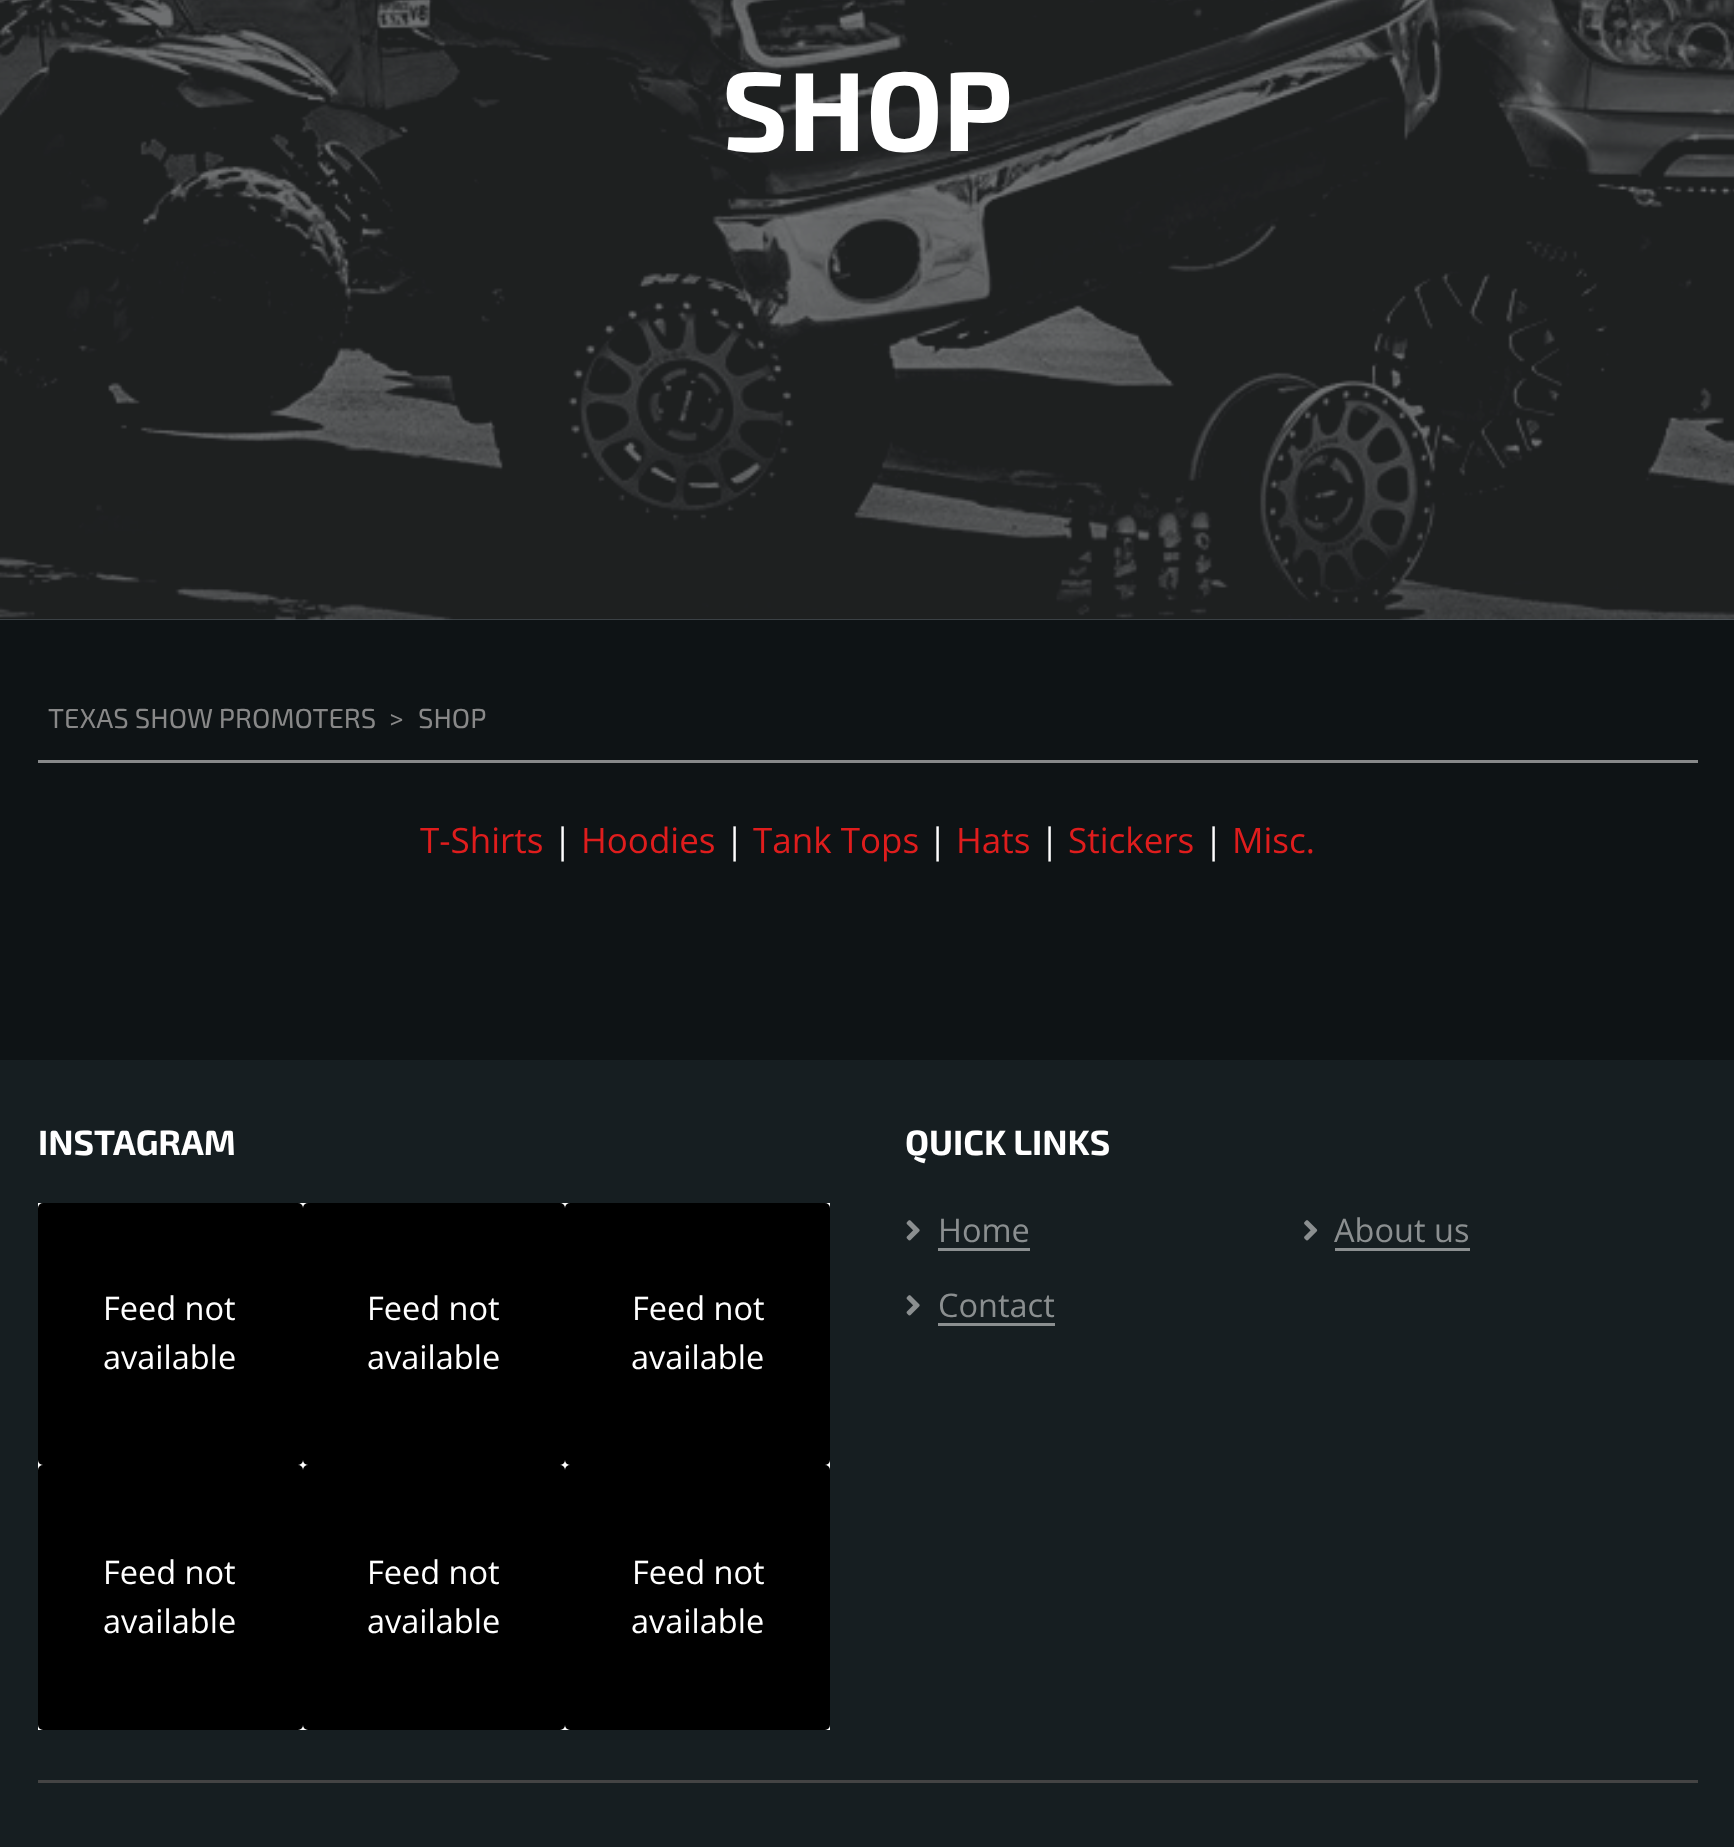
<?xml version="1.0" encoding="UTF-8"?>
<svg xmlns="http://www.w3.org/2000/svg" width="1734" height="1847">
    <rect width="100%" height="100%" fill="#0E1315"/>
    <rect x="0" y="619" width="1734" height="1" fill="#59636B"/>
    <image x="0" y="0" width="1734" height="620" href="img_01.png"/>
    <text x="722" y="151" font-family="'Exo 2'" font-size="112.5" font-weight="700" fill="#FFFFFF">SHOP</text>
    <rect x="38" y="760" width="1660" height="3" fill="#87898A"/>
    <text x="48" y="728" font-family="'Exo 2'" font-size="27.5" fill="#888888">TEXAS SHOW PROMOTERS</text>
    <text x="389" y="728" font-family="'Exo 2'" font-size="27.5" fill="#888888">&gt;</text>
    <text x="418" y="728" font-family="'Exo 2'" font-size="27.5" fill="#888888">SHOP</text>
    <text x="420" y="853" font-family="Open Sans" font-size="35" fill="#DF1D1D">T-Shirts</text>
    <text x="553" y="853" font-family="Open Sans" font-size="35" fill="#FFFFFF">|</text>
    <text x="581" y="853" font-family="Open Sans" font-size="35" fill="#DF1D1D">Hoodies</text>
    <text x="725" y="853" font-family="Open Sans" font-size="35" fill="#FFFFFF">|</text>
    <text x="753" y="853" font-family="Open Sans" font-size="35" fill="#DF1D1D">Tank Tops</text>
    <text x="928" y="853" font-family="Open Sans" font-size="35" fill="#FFFFFF">|</text>
    <text x="956" y="853" font-family="Open Sans" font-size="35" fill="#DF1D1D">Hats</text>
    <text x="1040" y="853" font-family="Open Sans" font-size="35" fill="#FFFFFF">|</text>
    <text x="1068" y="853" font-family="Open Sans" font-size="35" fill="#DF1D1D">Stickers</text>
    <text x="1204" y="853" font-family="Open Sans" font-size="35" fill="#FFFFFF">|</text>
    <text x="1232" y="853" font-family="Open Sans" font-size="35" fill="#DF1D1D">Misc.</text>
    <rect x="0" y="1060" width="1734" height="787" fill="#161E21"/>
    <text x="38" y="1155" font-family="'Exo 2'" font-size="35" font-weight="700" fill="#FFFFFF">INSTAGRAM</text>
    <rect x="38" y="1203" width="792" height="527" fill="#FFFFFF"/>
    <rect x="38" y="1203" width="265" height="262" rx="5" fill="#000000"/>
    <text font-family="Open Sans" font-size="32.5" fill="#FFFFFF">
        <tspan x="103" y="1320">Feed not</tspan>
        <tspan x="103" y="1369">available</tspan>
    </text>
    <rect x="303" y="1203" width="262" height="262" rx="5" fill="#000000"/>
    <text font-family="Open Sans" font-size="32.5" fill="#FFFFFF">
        <tspan x="367" y="1320">Feed not</tspan>
        <tspan x="367" y="1369">available</tspan>
    </text>
    <rect x="565" y="1203" width="265" height="262" rx="5" fill="#000000"/>
    <text x="632" y="1320" font-family="Open Sans" font-size="32.5" fill="#FFFFFF">Feed not</text>
    <text x="631" y="1369" font-family="Open Sans" font-size="32.5" fill="#FFFFFF">available</text>
    <rect x="38" y="1465" width="265" height="265" rx="5" fill="#000000"/>
    <text font-family="Open Sans" font-size="32.5" fill="#FFFFFF">
        <tspan x="103" y="1584">Feed not</tspan>
        <tspan x="103" y="1633">available</tspan>
    </text>
    <rect x="303" y="1465" width="262" height="265" rx="5" fill="#000000"/>
    <text font-family="Open Sans" font-size="32.5" fill="#FFFFFF">
        <tspan x="367" y="1584">Feed not</tspan>
        <tspan x="367" y="1633">available</tspan>
    </text>
    <rect x="565" y="1465" width="265" height="265" rx="5" fill="#000000"/>
    <text x="632" y="1584" font-family="Open Sans" font-size="32.5" fill="#FFFFFF">Feed not</text>
    <text x="631" y="1633" font-family="Open Sans" font-size="32.5" fill="#FFFFFF">available</text>
    <text x="905" y="1155" font-family="'Exo 2'" font-size="35" font-weight="700" fill="#FFFFFF">QUICK LINKS</text>
    <rect x="938" y="1248" width="92" height="3" fill="#8B8F90"/>
    <image x="906" y="1220" width="14" height="21" href="img_02.png"/>
    <text x="938" y="1242" font-family="Open Sans" font-size="32.5" fill="#8B8F90">Home</text>
    <rect x="1335" y="1248" width="135" height="3" fill="#8B8F90"/>
    <image x="1304" y="1220" width="14" height="21" href="img_03.png"/>
    <text x="1334" y="1242" font-family="Open Sans" font-size="32.5" fill="#8B8F90">About us</text>
    <rect x="938" y="1323" width="117" height="3" fill="#8B8F90"/>
    <image x="906" y="1295" width="14" height="21" href="img_02.png"/>
    <text x="938" y="1317" font-family="Open Sans" font-size="32.5" fill="#8B8F90">Contact</text>
    <rect x="38" y="1780" width="1660" height="3" fill="#444444"/>
</svg>
